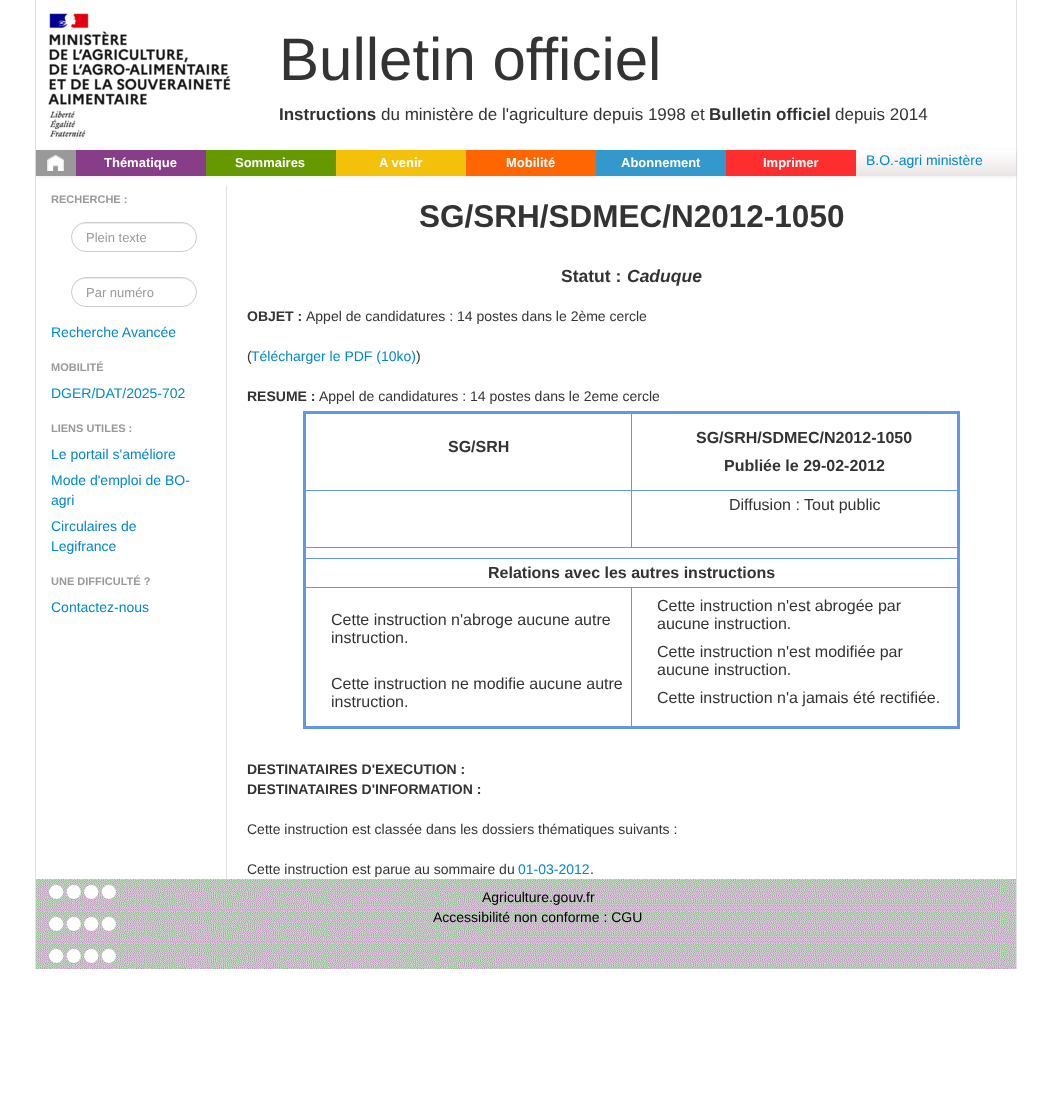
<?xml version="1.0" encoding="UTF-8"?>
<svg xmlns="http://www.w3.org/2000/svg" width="1051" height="1103">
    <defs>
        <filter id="blur1" x="-50%" y="-200%" width="200%" height="500%"><feGaussianBlur stdDeviation="2"/></filter>
        <linearGradient id="g1" gradientUnits="userSpaceOnUse" x1="526" y1="150" x2="526" y2="176"><stop offset="0" stop-color="#FFFFFF"/><stop offset="1" stop-color="#EAE5E5"/></linearGradient>
    </defs>
    <rect width="100%" height="100%" fill="#FFFFFF"/>
    <rect x="1016" y="0" width="1" height="969" fill="#E0E0E0"/>
    <rect x="35" y="0" width="1" height="969" fill="#E0E0E0"/>
    <image x="48" y="13" width="183" height="124" href="img_01.png"/>
    <text x="279" y="80" font-family="Liberation Sans" font-size="60" fill="#333333">Bulletin officiel</text>
    <text x="279" y="120" font-family="Liberation Sans" font-size="17" font-weight="700" fill="#333333">Instructions</text>
    <text x="381" y="120" font-family="Liberation Sans" font-size="17" fill="#333333">du ministère de l'agriculture depuis 1998 et</text>
    <text x="709" y="120" font-family="Liberation Sans" font-size="17" font-weight="700" fill="#333333">Bulletin officiel</text>
    <text x="835" y="120" font-family="Liberation Sans" font-size="17" fill="#333333">depuis 2014</text>
    <rect x="36" y="151" width="980" height="26" fill="#000000" fill-opacity="0.07" filter="url(#blur1)"/>
    <rect x="856" y="150" width="160" height="26" fill="url(#g1)"/>
    <rect x="36" y="150" width="40" height="26" fill="#999999"/>
    <image x="47" y="155" width="17" height="16" href="img_02.png"/>
    <rect x="76" y="150" width="130" height="26" fill="#873D87"/>
    <text x="104" y="167" font-family="Liberation Sans" font-size="13" font-weight="700" fill="#FFFFFF">Thématique</text>
    <rect x="206" y="150" width="130" height="26" fill="#669900"/>
    <text x="235" y="167" font-family="Liberation Sans" font-size="13" font-weight="700" fill="#FFFFFF">Sommaires</text>
    <rect x="336" y="150" width="130" height="26" fill="#F3C10A"/>
    <text x="379" y="167" font-family="Liberation Sans" font-size="13" font-weight="700" fill="#FFFFFF">A venir</text>
    <rect x="466" y="150" width="130" height="26" fill="#FF6600"/>
    <text x="506" y="167" font-family="Liberation Sans" font-size="13" font-weight="700" fill="#FFFFFF">Mobilité</text>
    <rect x="596" y="150" width="130" height="26" fill="#3399CC"/>
    <text x="621" y="167" font-family="Liberation Sans" font-size="13" font-weight="700" fill="#FFFFFF">Abonnement</text>
    <rect x="726" y="150" width="130" height="26" fill="#FE2E2E"/>
    <text x="763" y="167" font-family="Liberation Sans" font-size="13" font-weight="700" fill="#FFFFFF">Imprimer</text>
    <text x="866" y="165" font-family="Liberation Sans" font-size="14" fill="#0088CC">B.O.-agri ministère</text>
    <text x="51" y="203" font-family="Liberation Sans" font-size="11" font-weight="700" fill="#999999">RECHERCHE :</text>
    <path d="M 86 224 H 182 C 190 224 196 230 196 237 C 196 229 190 223 182 223 H 86 C 78 223 72 229 72 237 C 72 230 78 224 86 224 Z" fill="#ECECEC"/>
    <rect x="71.5" y="222.5" width="125" height="29" rx="14.5" fill="none" stroke="#CCCCCC"/>
    <text x="86" y="242" font-family="Liberation Sans" font-size="13" fill="#999999">Plein texte</text>
    <path d="M 86 279 H 182 C 190 279 196 285 196 292 C 196 284 190 278 182 278 H 86 C 78 278 72 284 72 292 C 72 285 78 279 86 279 Z" fill="#ECECEC"/>
    <rect x="71.5" y="277.5" width="125" height="29" rx="14.5" fill="none" stroke="#CCCCCC"/>
    <text x="86" y="297" font-family="Liberation Sans" font-size="13" fill="#999999">Par numéro</text>
    <text x="51" y="337" font-family="Liberation Sans" font-size="14" fill="#0088CC">Recherche Avancée</text>
    <text x="51" y="371" font-family="Liberation Sans" font-size="11" font-weight="700" fill="#999999">MOBILITÉ</text>
    <text x="51" y="398" font-family="Liberation Sans" font-size="14" fill="#0088CC">DGER/DAT/2025-702</text>
    <text x="51" y="432" font-family="Liberation Sans" font-size="11" font-weight="700" fill="#999999">LIENS UTILES :</text>
    <text font-family="Liberation Sans" font-size="14" fill="#0088CC">
        <tspan x="51" y="459">Le portail s'améliore</tspan>
        <tspan x="51" y="485">Mode d'emploi de BO-</tspan>
        <tspan x="51" y="505">agri</tspan>
        <tspan x="51" y="531">Circulaires de</tspan>
        <tspan x="51" y="551">Legifrance</tspan>
    </text>
    <text x="51" y="585" font-family="Liberation Sans" font-size="11" font-weight="700" fill="#999999">UNE DIFFICULTÉ ?</text>
    <text x="51" y="612" font-family="Liberation Sans" font-size="14" fill="#0088CC">Contactez-nous</text>
    <rect x="226" y="186" width="1" height="693" fill="#E0E0E0"/>
    <text x="419" y="227" font-family="Liberation Sans" font-size="31.5" font-weight="700" fill="#333333">SG/SRH/SDMEC/N2012-1050</text>
    <text x="561" y="282" font-family="Liberation Sans" font-size="17.5" font-weight="700" fill="#333333">Statut :</text>
    <text x="627" y="282" font-family="Liberation Sans" font-size="17.5" font-weight="700" font-style="italic" fill="#333333">Caduque</text>
    <text x="247" y="321" font-family="Liberation Sans" font-size="14" font-weight="700" fill="#333333">OBJET :</text>
    <text x="306" y="321" font-family="Liberation Sans" font-size="14" fill="#333333">Appel de candidatures : 14 postes dans le 2ème cercle</text>
    <text x="247" y="361" font-family="Liberation Sans" font-size="14" fill="#333333">(</text>
    <text x="251" y="361" font-family="Liberation Sans" font-size="14" fill="#0088CC">Télécharger le PDF (10ko)</text>
    <text x="416" y="361" font-family="Liberation Sans" font-size="14" fill="#333333">)</text>
    <text x="247" y="401" font-family="Liberation Sans" font-size="14" font-weight="700" fill="#333333">RESUME :</text>
    <text x="319" y="401" font-family="Liberation Sans" font-size="14" fill="#333333">Appel de candidatures : 14 postes dans le 2eme cercle</text>
    <rect x="631" y="490" width="328" height="1" fill="#6495ED"/>
    <rect x="304" y="547" width="655" height="1" fill="#6495ED"/>
    <rect x="631" y="490" width="1" height="58" fill="#6495ED"/>
    <rect x="304" y="490" width="328" height="1" fill="#6495ED"/>
    <rect x="631" y="412" width="1" height="79" fill="#6495ED"/>
    <rect x="303" y="411" width="657" height="3" fill="#6495ED"/>
    <rect x="304" y="558" width="655" height="1" fill="#6495ED"/>
    <rect x="631" y="587" width="328" height="1" fill="#6495ED"/>
    <rect x="957" y="411" width="3" height="318" fill="#6495ED"/>
    <rect x="631" y="587" width="1" height="141" fill="#6495ED"/>
    <rect x="303" y="726" width="657" height="3" fill="#6495ED"/>
    <rect x="304" y="587" width="328" height="1" fill="#6495ED"/>
    <rect x="303" y="411" width="3" height="318" fill="#6495ED"/>
    <text x="448" y="452" font-family="Liberation Sans" font-size="16" font-weight="700" fill="#333333">SG/SRH</text>
    <text x="696" y="443" font-family="Liberation Sans" font-size="16" font-weight="700" fill="#333333">SG/SRH/SDMEC/N2012-1050</text>
    <text x="724" y="471" font-family="Liberation Sans" font-size="16" font-weight="700" fill="#333333">Publiée le 29-02-2012</text>
    <text x="729" y="510" font-family="Liberation Sans" font-size="16" fill="#333333">Diffusion : Tout public</text>
    <text x="488" y="578" font-family="Liberation Sans" font-size="16" font-weight="700" fill="#333333">Relations avec les autres instructions</text>
    <text font-family="Liberation Sans" font-size="16" fill="#333333">
        <tspan x="331" y="625">Cette instruction n'abroge aucune autre</tspan>
        <tspan x="331" y="643">instruction.</tspan>
    </text>
    <text font-family="Liberation Sans" font-size="16" fill="#333333">
        <tspan x="331" y="689">Cette instruction ne modifie aucune autre</tspan>
        <tspan x="331" y="707">instruction.</tspan>
    </text>
    <text font-family="Liberation Sans" font-size="16" fill="#333333">
        <tspan x="657" y="611">Cette instruction n'est abrogée par</tspan>
        <tspan x="657" y="629">aucune instruction.</tspan>
        <tspan x="657" y="657">Cette instruction n'est modifiée par</tspan>
        <tspan x="657" y="675">aucune instruction.</tspan>
        <tspan x="657" y="703">Cette instruction n'a jamais été rectifiée.</tspan>
    </text>
    <text font-family="Liberation Sans" font-size="14" font-weight="700" fill="#333333">
        <tspan x="247" y="774">DESTINATAIRES D'EXECUTION :</tspan>
        <tspan x="247" y="794">DESTINATAIRES D'INFORMATION :</tspan>
    </text>
    <text x="247" y="834" font-family="Liberation Sans" font-size="14" fill="#333333">Cette instruction est classée dans les dossiers thématiques suivants :</text>
    <text x="247" y="874" font-family="Liberation Sans" font-size="14" fill="#333333">Cette instruction est parue au sommaire du</text>
    <text x="518" y="874" font-family="Liberation Sans" font-size="14" fill="#0088CC">01-03-2012</text>
    <text x="590" y="874" font-family="Liberation Sans" font-size="14" fill="#333333">.</text>
    <image x="36" y="879" width="980" height="90" href="img_03.png"/>
    <text x="482" y="902" font-family="Liberation Sans" font-size="14" fill="#000000">Agriculture.gouv.fr</text>
    <text x="433" y="922" font-family="Liberation Sans" font-size="14" fill="#000000">Accessibilité non conforme : CGU</text>
</svg>
